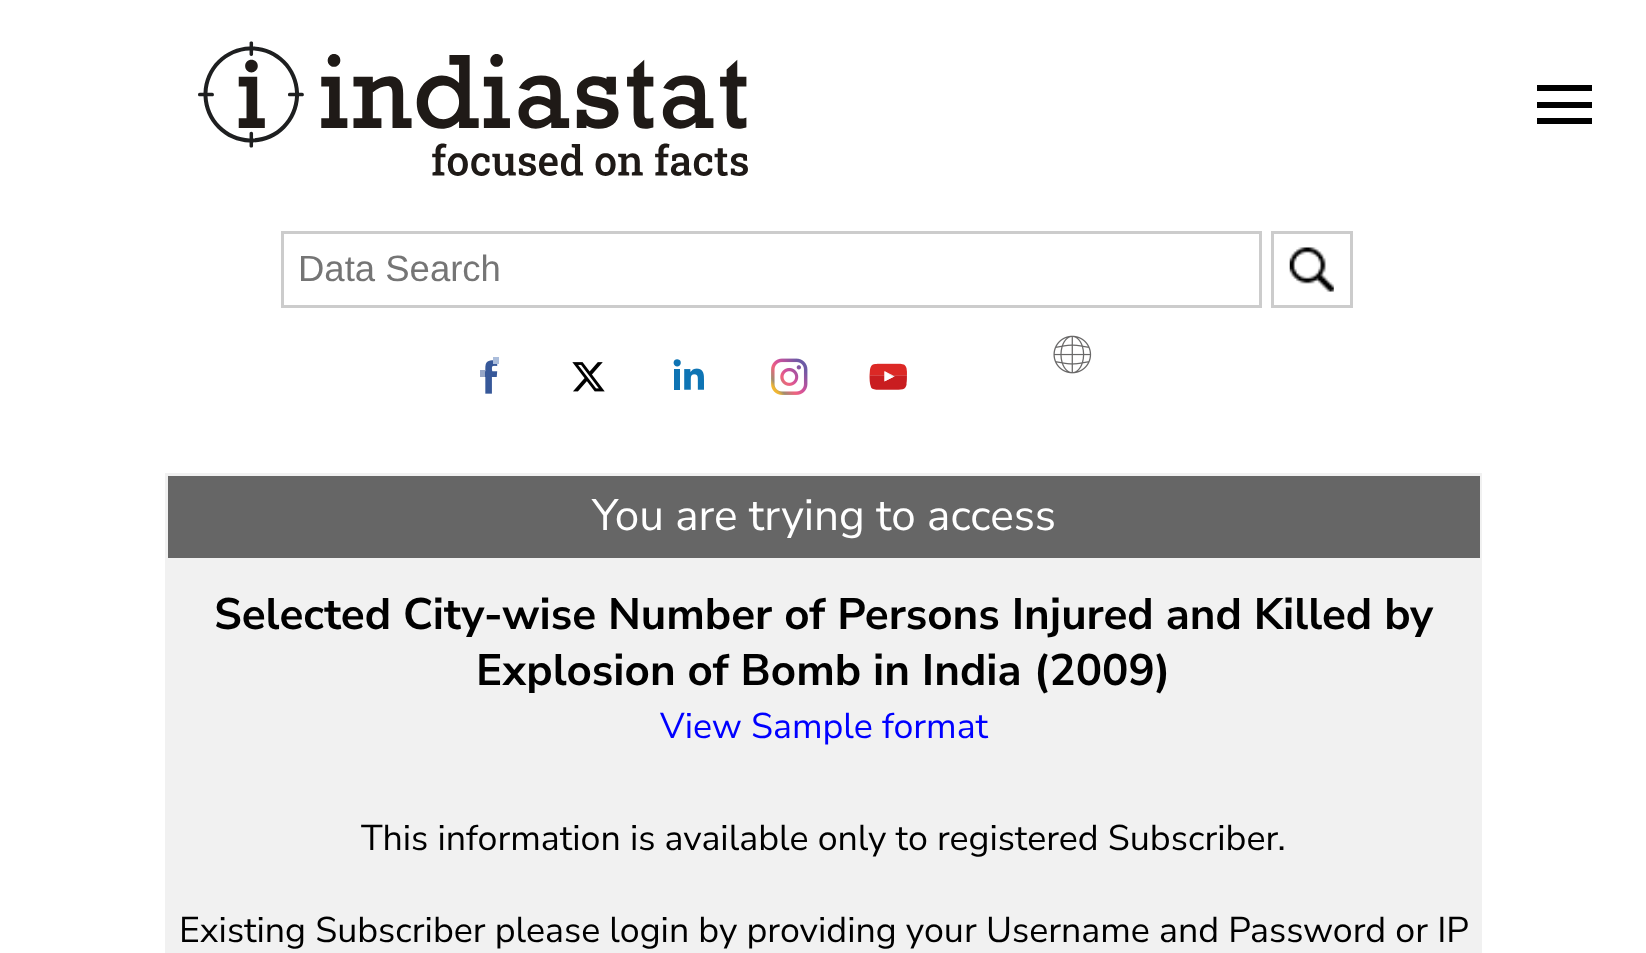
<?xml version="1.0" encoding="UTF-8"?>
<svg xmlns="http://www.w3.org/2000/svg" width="1646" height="953">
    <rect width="100%" height="100%" fill="#FFFFFF"/>
    <image x="198" y="41" width="550" height="135" href="img_01.png"/>
    <rect x="1537" y="85" width="55" height="6" fill="#000000"/>
    <rect x="1537" y="102" width="55" height="6" fill="#000000"/>
    <rect x="1537" y="118" width="55" height="6" fill="#000000"/>
    <rect x="282.5" y="232.5" width="978" height="74" fill="none" stroke="#CCCCCC" stroke-width="3"/>
    <text x="298" y="281" font-family="Liberation Sans" font-size="36.5" fill="#757575">Data Search</text>
    <rect x="1272.5" y="232.5" width="79" height="74" fill="none" stroke="#CCCCCC" stroke-width="3"/>
    <image x="1289" y="247" width="45" height="45" href="img_02.png"/>
    <image x="480" y="357" width="19" height="37" href="img_03.png"/>
    <image x="572" y="362" width="33" height="30" href="img_04.png"/>
    <image x="673" y="359" width="31" height="31" href="img_05.png"/>
    <image x="771" y="358" width="37" height="37" href="img_06.png"/>
    <image x="869" y="363" width="38" height="27" href="img_07.png"/>
    <image x="1053" y="335" width="39" height="39" href="img_08.png"/>
    <rect x="165" y="473" width="1317" height="480" fill="#F1F1F1"/>
    <rect x="168" y="476" width="1312" height="82" fill="#666666"/>
    <text x="592" y="530" font-family="Nunito Sans" font-size="44" fill="#FFFFFF">You are trying to access</text>
    <text x="214" y="629" font-family="Nunito Sans" font-size="44" font-weight="700" fill="#000000">Selected City-wise Number of Persons Injured and Killed by</text>
    <text x="476" y="685" font-family="Nunito Sans" font-size="44" font-weight="700" fill="#000000">Explosion of Bomb in India (2009)</text>
    <text x="660" y="738" font-family="Nunito Sans" font-size="35.75" fill="#0000FF">View Sample format</text>
    <text x="361" y="850" font-family="Nunito Sans" font-size="35.75" fill="#000000">This information is available only to registered Subscriber.</text>
    <text x="179" y="942" font-family="Nunito Sans" font-size="35.75" fill="#000000">Existing Subscriber please login by providing your Username and Password or IP</text>
</svg>
